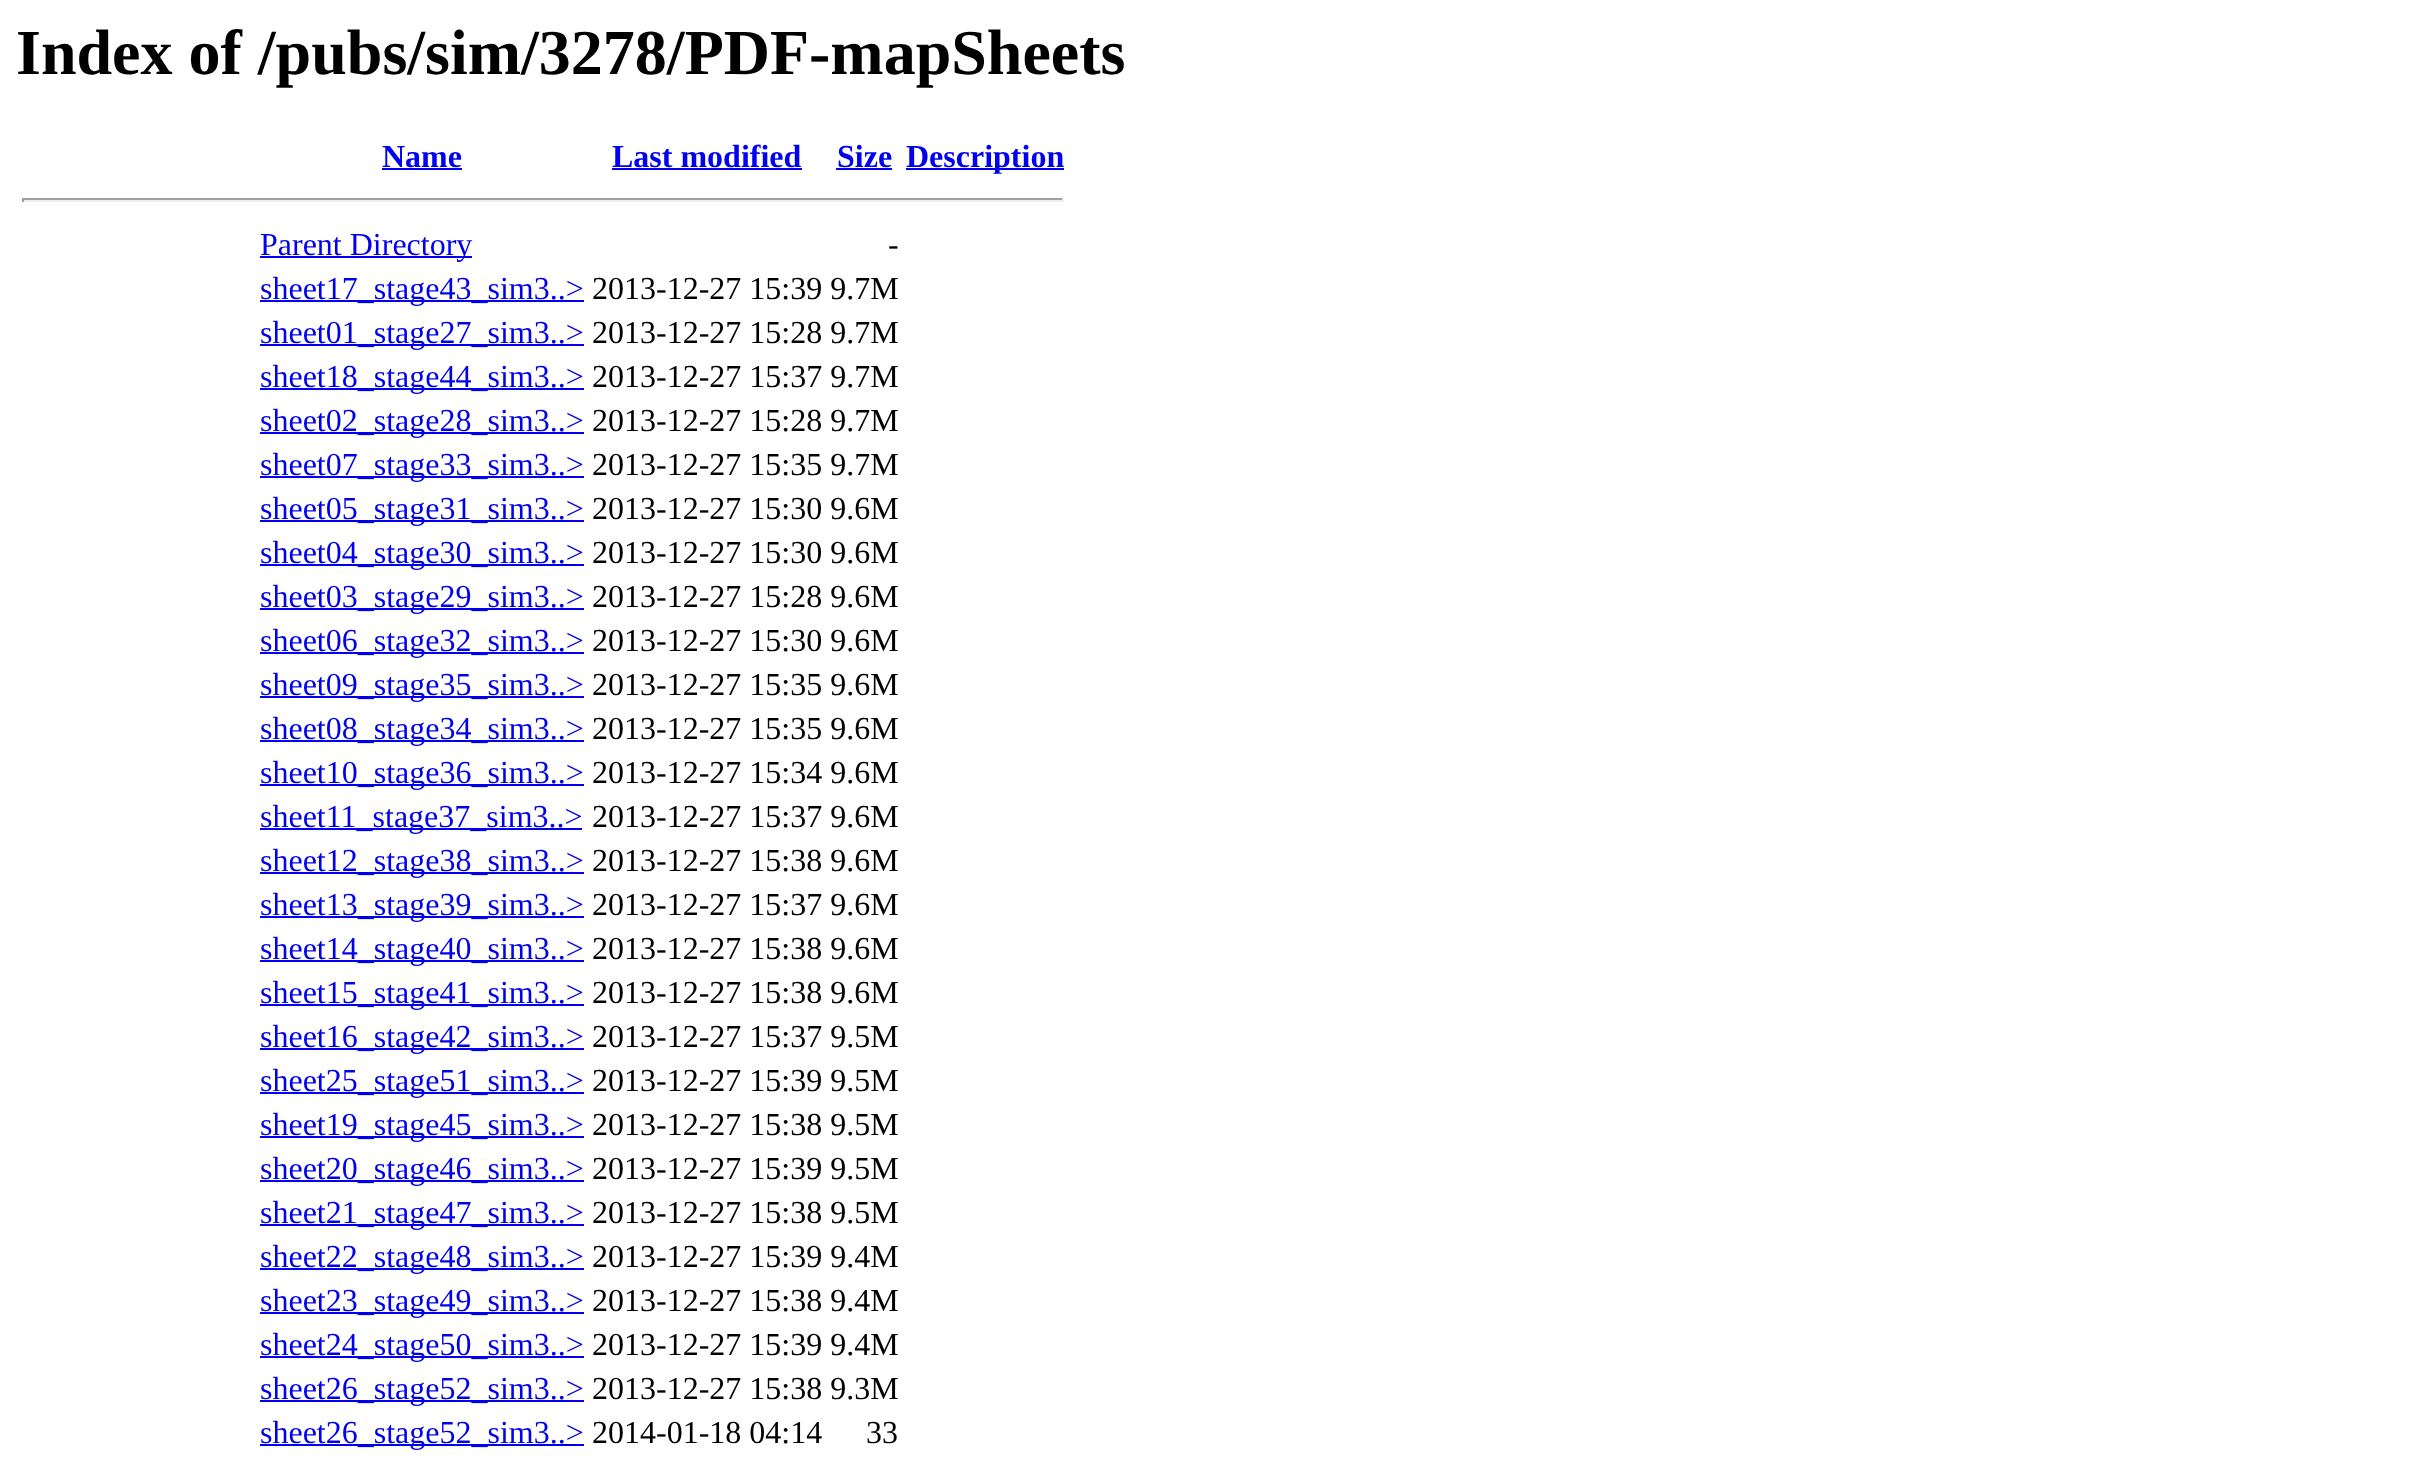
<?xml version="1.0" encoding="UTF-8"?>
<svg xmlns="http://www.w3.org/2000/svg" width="2428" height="1468">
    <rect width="100%" height="100%" fill="#FFFFFF"/>
    <text x="16" y="74" font-family="Liberation Serif" font-size="64" font-weight="700" fill="#000000">Index of /pubs/sim/3278/PDF-mapSheets</text>
    <text x="382" y="167" font-family="Liberation Serif" font-size="32" font-weight="700" fill="#0000EE">Name</text>
    <rect x="382" y="168" width="80" height="2" fill="#0000EE"/>
    <text x="612" y="167" font-family="Liberation Serif" font-size="32" font-weight="700" fill="#0000EE">Last modified</text>
    <rect x="612" y="168" width="190" height="2" fill="#0000EE"/>
    <text x="837" y="167" font-family="Liberation Serif" font-size="32" font-weight="700" fill="#0000EE">Size</text>
    <rect x="836" y="168" width="56" height="2" fill="#0000EE"/>
    <rect x="906" y="168" width="158" height="2" fill="#0000EE"/>
    <text x="906" y="167" font-family="Liberation Serif" font-size="32" font-weight="700" fill="#0000EE">Description</text>
    <rect x="22" y="198" width="1042" height="2" fill="#9F9F9F"/>
    <rect x="1062" y="198" width="2" height="4" fill="#EEEEEE"/>
    <rect x="22" y="200" width="1042" height="2" fill="#EEEEEE"/>
    <rect x="22" y="198" width="2" height="4" fill="#9F9F9F"/>
    <rect x="260" y="256" width="212" height="2" fill="#0000EE"/>
    <text x="260" y="255" font-family="Liberation Serif" font-size="32" fill="#0000EE">Parent Directory</text>
    <text x="888" y="255" font-family="Liberation Serif" font-size="32" fill="#000000">-</text>
    <rect x="260" y="300" width="324" height="2" fill="#0000EE"/>
    <text x="260" y="299" font-family="Liberation Serif" font-size="32" fill="#0000EE">sheet17_stage43_sim3..&gt;</text>
    <text x="592" y="299" font-family="Liberation Serif" font-size="32" fill="#000000">2013-12-27 15:39 9.7M</text>
    <rect x="260" y="344" width="324" height="2" fill="#0000EE"/>
    <text x="260" y="343" font-family="Liberation Serif" font-size="32" fill="#0000EE">sheet01_stage27_sim3..&gt;</text>
    <text x="592" y="343" font-family="Liberation Serif" font-size="32" fill="#000000">2013-12-27 15:28 9.7M</text>
    <rect x="260" y="388" width="324" height="2" fill="#0000EE"/>
    <text x="260" y="387" font-family="Liberation Serif" font-size="32" fill="#0000EE">sheet18_stage44_sim3..&gt;</text>
    <text x="592" y="387" font-family="Liberation Serif" font-size="32" fill="#000000">2013-12-27 15:37 9.7M</text>
    <rect x="260" y="432" width="324" height="2" fill="#0000EE"/>
    <text x="260" y="431" font-family="Liberation Serif" font-size="32" fill="#0000EE">sheet02_stage28_sim3..&gt;</text>
    <text x="592" y="431" font-family="Liberation Serif" font-size="32" fill="#000000">2013-12-27 15:28 9.7M</text>
    <rect x="260" y="476" width="324" height="2" fill="#0000EE"/>
    <text x="260" y="475" font-family="Liberation Serif" font-size="32" fill="#0000EE">sheet07_stage33_sim3..&gt;</text>
    <text x="592" y="475" font-family="Liberation Serif" font-size="32" fill="#000000">2013-12-27 15:35 9.7M</text>
    <rect x="260" y="520" width="324" height="2" fill="#0000EE"/>
    <text x="260" y="519" font-family="Liberation Serif" font-size="32" fill="#0000EE">sheet05_stage31_sim3..&gt;</text>
    <text x="592" y="519" font-family="Liberation Serif" font-size="32" fill="#000000">2013-12-27 15:30 9.6M</text>
    <rect x="260" y="564" width="324" height="2" fill="#0000EE"/>
    <text x="260" y="563" font-family="Liberation Serif" font-size="32" fill="#0000EE">sheet04_stage30_sim3..&gt;</text>
    <text x="592" y="563" font-family="Liberation Serif" font-size="32" fill="#000000">2013-12-27 15:30 9.6M</text>
    <rect x="260" y="608" width="324" height="2" fill="#0000EE"/>
    <text x="260" y="607" font-family="Liberation Serif" font-size="32" fill="#0000EE">sheet03_stage29_sim3..&gt;</text>
    <text x="592" y="607" font-family="Liberation Serif" font-size="32" fill="#000000">2013-12-27 15:28 9.6M</text>
    <rect x="260" y="652" width="324" height="2" fill="#0000EE"/>
    <text x="260" y="651" font-family="Liberation Serif" font-size="32" fill="#0000EE">sheet06_stage32_sim3..&gt;</text>
    <text x="592" y="651" font-family="Liberation Serif" font-size="32" fill="#000000">2013-12-27 15:30 9.6M</text>
    <rect x="260" y="696" width="324" height="2" fill="#0000EE"/>
    <text x="260" y="695" font-family="Liberation Serif" font-size="32" fill="#0000EE">sheet09_stage35_sim3..&gt;</text>
    <text x="592" y="695" font-family="Liberation Serif" font-size="32" fill="#000000">2013-12-27 15:35 9.6M</text>
    <rect x="260" y="740" width="324" height="2" fill="#0000EE"/>
    <text x="260" y="739" font-family="Liberation Serif" font-size="32" fill="#0000EE">sheet08_stage34_sim3..&gt;</text>
    <text x="592" y="739" font-family="Liberation Serif" font-size="32" fill="#000000">2013-12-27 15:35 9.6M</text>
    <rect x="260" y="784" width="324" height="2" fill="#0000EE"/>
    <text x="260" y="783" font-family="Liberation Serif" font-size="32" fill="#0000EE">sheet10_stage36_sim3..&gt;</text>
    <text x="592" y="783" font-family="Liberation Serif" font-size="32" fill="#000000">2013-12-27 15:34 9.6M</text>
    <rect x="260" y="828" width="322" height="2" fill="#0000EE"/>
    <text x="260" y="827" font-family="Liberation Serif" font-size="32" fill="#0000EE">sheet11_stage37_sim3..&gt;</text>
    <text x="592" y="827" font-family="Liberation Serif" font-size="32" fill="#000000">2013-12-27 15:37 9.6M</text>
    <rect x="260" y="872" width="324" height="2" fill="#0000EE"/>
    <text x="260" y="871" font-family="Liberation Serif" font-size="32" fill="#0000EE">sheet12_stage38_sim3..&gt;</text>
    <text x="592" y="871" font-family="Liberation Serif" font-size="32" fill="#000000">2013-12-27 15:38 9.6M</text>
    <rect x="260" y="916" width="324" height="2" fill="#0000EE"/>
    <text x="260" y="915" font-family="Liberation Serif" font-size="32" fill="#0000EE">sheet13_stage39_sim3..&gt;</text>
    <text x="592" y="915" font-family="Liberation Serif" font-size="32" fill="#000000">2013-12-27 15:37 9.6M</text>
    <rect x="260" y="960" width="324" height="2" fill="#0000EE"/>
    <text x="260" y="959" font-family="Liberation Serif" font-size="32" fill="#0000EE">sheet14_stage40_sim3..&gt;</text>
    <text x="592" y="959" font-family="Liberation Serif" font-size="32" fill="#000000">2013-12-27 15:38 9.6M</text>
    <rect x="260" y="1004" width="324" height="2" fill="#0000EE"/>
    <text x="260" y="1003" font-family="Liberation Serif" font-size="32" fill="#0000EE">sheet15_stage41_sim3..&gt;</text>
    <text x="592" y="1003" font-family="Liberation Serif" font-size="32" fill="#000000">2013-12-27 15:38 9.6M</text>
    <rect x="260" y="1048" width="324" height="2" fill="#0000EE"/>
    <text x="260" y="1047" font-family="Liberation Serif" font-size="32" fill="#0000EE">sheet16_stage42_sim3..&gt;</text>
    <text x="592" y="1047" font-family="Liberation Serif" font-size="32" fill="#000000">2013-12-27 15:37 9.5M</text>
    <rect x="260" y="1092" width="324" height="2" fill="#0000EE"/>
    <text x="260" y="1091" font-family="Liberation Serif" font-size="32" fill="#0000EE">sheet25_stage51_sim3..&gt;</text>
    <text x="592" y="1091" font-family="Liberation Serif" font-size="32" fill="#000000">2013-12-27 15:39 9.5M</text>
    <rect x="260" y="1136" width="324" height="2" fill="#0000EE"/>
    <text x="260" y="1135" font-family="Liberation Serif" font-size="32" fill="#0000EE">sheet19_stage45_sim3..&gt;</text>
    <text x="592" y="1135" font-family="Liberation Serif" font-size="32" fill="#000000">2013-12-27 15:38 9.5M</text>
    <rect x="260" y="1180" width="324" height="2" fill="#0000EE"/>
    <text x="260" y="1179" font-family="Liberation Serif" font-size="32" fill="#0000EE">sheet20_stage46_sim3..&gt;</text>
    <text x="592" y="1179" font-family="Liberation Serif" font-size="32" fill="#000000">2013-12-27 15:39 9.5M</text>
    <rect x="260" y="1224" width="324" height="2" fill="#0000EE"/>
    <text x="260" y="1223" font-family="Liberation Serif" font-size="32" fill="#0000EE">sheet21_stage47_sim3..&gt;</text>
    <text x="592" y="1223" font-family="Liberation Serif" font-size="32" fill="#000000">2013-12-27 15:38 9.5M</text>
    <rect x="260" y="1268" width="324" height="2" fill="#0000EE"/>
    <text x="260" y="1267" font-family="Liberation Serif" font-size="32" fill="#0000EE">sheet22_stage48_sim3..&gt;</text>
    <text x="592" y="1267" font-family="Liberation Serif" font-size="32" fill="#000000">2013-12-27 15:39 9.4M</text>
    <rect x="260" y="1312" width="324" height="2" fill="#0000EE"/>
    <text x="260" y="1311" font-family="Liberation Serif" font-size="32" fill="#0000EE">sheet23_stage49_sim3..&gt;</text>
    <text x="592" y="1311" font-family="Liberation Serif" font-size="32" fill="#000000">2013-12-27 15:38 9.4M</text>
    <rect x="260" y="1356" width="324" height="2" fill="#0000EE"/>
    <text x="260" y="1355" font-family="Liberation Serif" font-size="32" fill="#0000EE">sheet24_stage50_sim3..&gt;</text>
    <text x="592" y="1355" font-family="Liberation Serif" font-size="32" fill="#000000">2013-12-27 15:39 9.4M</text>
    <rect x="260" y="1400" width="324" height="2" fill="#0000EE"/>
    <text x="260" y="1399" font-family="Liberation Serif" font-size="32" fill="#0000EE">sheet26_stage52_sim3..&gt;</text>
    <text x="592" y="1399" font-family="Liberation Serif" font-size="32" fill="#000000">2013-12-27 15:38 9.3M</text>
    <rect x="260" y="1444" width="324" height="2" fill="#0000EE"/>
    <text x="260" y="1443" font-family="Liberation Serif" font-size="32" fill="#0000EE">sheet26_stage52_sim3..&gt;</text>
    <text x="592" y="1443" font-family="Liberation Serif" font-size="32" fill="#000000">2014-01-18 04:14</text>
    <text x="866" y="1443" font-family="Liberation Serif" font-size="32" fill="#000000">33</text>
</svg>
